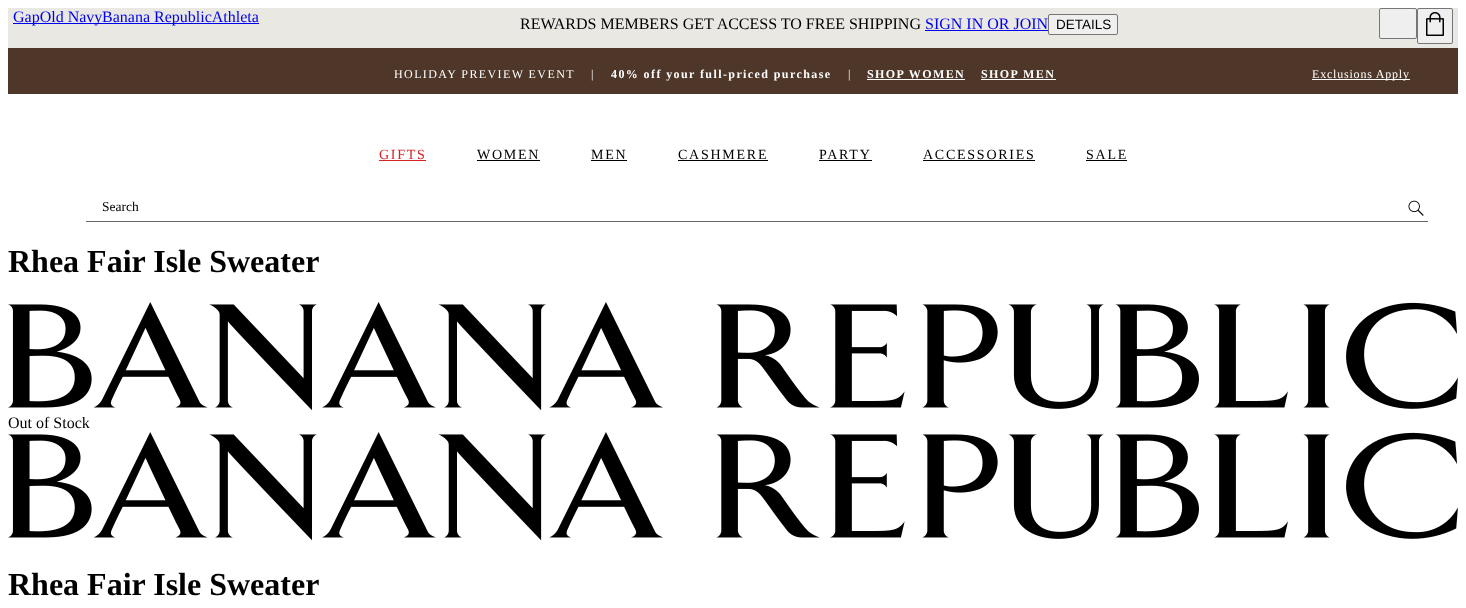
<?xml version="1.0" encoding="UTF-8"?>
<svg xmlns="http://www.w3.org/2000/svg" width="1466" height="608">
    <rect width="100%" height="100%" fill="#FFFFFF"/>
    <rect x="8" y="8" width="1450" height="40" fill="#E9E8E3"/>
    <rect x="13" y="23" width="89" height="1" fill="#0000EE"/>
    <text x="13" y="22" font-family="Liberation Serif" font-size="16" fill="#0000EE">GapOld Navy</text>
    <rect x="102" y="23" width="157" height="1" fill="#0000EE"/>
    <text x="102" y="22" font-family="Liberation Serif" font-size="16" fill="#0000EE">Banana RepublicAthleta</text>
    <text x="520" y="29" font-family="Liberation Serif" font-size="16" fill="#000000">REWARDS MEMBERS GET ACCESS TO FREE SHIPPING</text>
    <text x="925" y="29" font-family="Liberation Serif" font-size="16" fill="#0000EE">SIGN IN OR JOIN</text>
    <rect x="925" y="30" width="123" height="1" fill="#0000EE"/>
    <rect x="1048.5" y="14.5" width="69" height="20" rx="1.5" fill="#EFEFEF" stroke="#767676"/>
    <text x="1056" y="29" font-family="Liberation Sans" font-size="13.5" fill="#000000">DETAILS</text>
    <rect x="1379.5" y="8.5" width="37" height="30" rx="1.5" fill="#EFEFEF" stroke="#767676"/>
    <rect x="1417.5" y="8.5" width="35" height="35" rx="1.5" fill="#EFEFEF" stroke="#767676"/>
    <image x="1426" y="12" width="18" height="24" href="img_01.png"/>
    <rect x="8" y="48" width="1450" height="46" fill="#4E3629"/>
    <text x="394" y="78" font-family="Liberation Serif" font-size="12" letter-spacing="1.4" fill="#FFFFFF">HOLIDAY PREVIEW EVENT</text>
    <text x="591" y="78" font-family="Liberation Serif" font-size="12" letter-spacing="1.4" fill="#FFFFFF">|</text>
    <text x="611" y="78" font-family="Liberation Serif" font-size="12" font-weight="700" letter-spacing="1.4" fill="#FFFFFF">40% off your full-priced purchase</text>
    <text x="848" y="78" font-family="Liberation Serif" font-size="12" letter-spacing="1.4" fill="#FFFFFF">|</text>
    <text x="867" y="78" font-family="Liberation Serif" font-size="12" font-weight="700" letter-spacing="1.4" fill="#FFFFFF">SHOP WOMEN</text>
    <rect x="867" y="79" width="98" height="1" fill="#FFFFFF"/>
    <text x="981" y="78" font-family="Liberation Serif" font-size="12" font-weight="700" letter-spacing="1.4" fill="#FFFFFF">SHOP MEN</text>
    <rect x="981" y="79" width="75" height="1" fill="#FFFFFF"/>
    <rect x="1312" y="79" width="98" height="1" fill="#FFFFFF"/>
    <text x="1312" y="78" font-family="Liberation Serif" font-size="12" letter-spacing="0.8" fill="#FFFFFF">Exclusions Apply</text>
    <text x="379" y="159" font-family="Liberation Serif" font-size="14" letter-spacing="1.75" fill="#D92222">GIFTS</text>
    <rect x="379" y="160" width="47" height="1" fill="#D92222"/>
    <text x="477" y="159" font-family="Liberation Serif" font-size="14" letter-spacing="1.75" fill="#000000">WOMEN</text>
    <rect x="477" y="160" width="63" height="1" fill="#000000"/>
    <text x="591" y="159" font-family="Liberation Serif" font-size="14" letter-spacing="1.75" fill="#000000">MEN</text>
    <rect x="591" y="160" width="36" height="1" fill="#000000"/>
    <text x="678" y="159" font-family="Liberation Serif" font-size="14" letter-spacing="1.75" fill="#000000">CASHMERE</text>
    <rect x="678" y="160" width="90" height="1" fill="#000000"/>
    <text x="819" y="159" font-family="Liberation Serif" font-size="14" letter-spacing="1.75" fill="#000000">PARTY</text>
    <rect x="819" y="160" width="53" height="1" fill="#000000"/>
    <text x="923" y="159" font-family="Liberation Serif" font-size="14" letter-spacing="1.75" fill="#000000">ACCESSORIES</text>
    <rect x="923" y="160" width="112" height="1" fill="#000000"/>
    <text x="1086" y="159" font-family="Liberation Serif" font-size="14" letter-spacing="1.75" fill="#000000">SALE</text>
    <rect x="1086" y="160" width="41" height="1" fill="#000000"/>
    <rect x="86" y="221" width="1342" height="1" fill="#666666"/>
    <text x="102" y="211" font-family="Liberation Serif" font-size="13.5" fill="#000000">Search</text>
    <image x="1408" y="200" width="16" height="16" href="img_02.png"/>
    <text x="8" y="272" font-family="Liberation Serif" font-size="32" font-weight="700" fill="#000000">Rhea Fair Isle Sweater</text>
    <image x="8" y="302" width="1450" height="108" href="img_03.png"/>
    <text x="8" y="428" font-family="Liberation Serif" font-size="16" fill="#000000">Out of Stock</text>
    <image x="8" y="432" width="1450" height="109" href="img_04.png"/>
    <text x="8" y="595" font-family="Liberation Serif" font-size="32" font-weight="700" fill="#000000">Rhea Fair Isle Sweater</text>
</svg>
